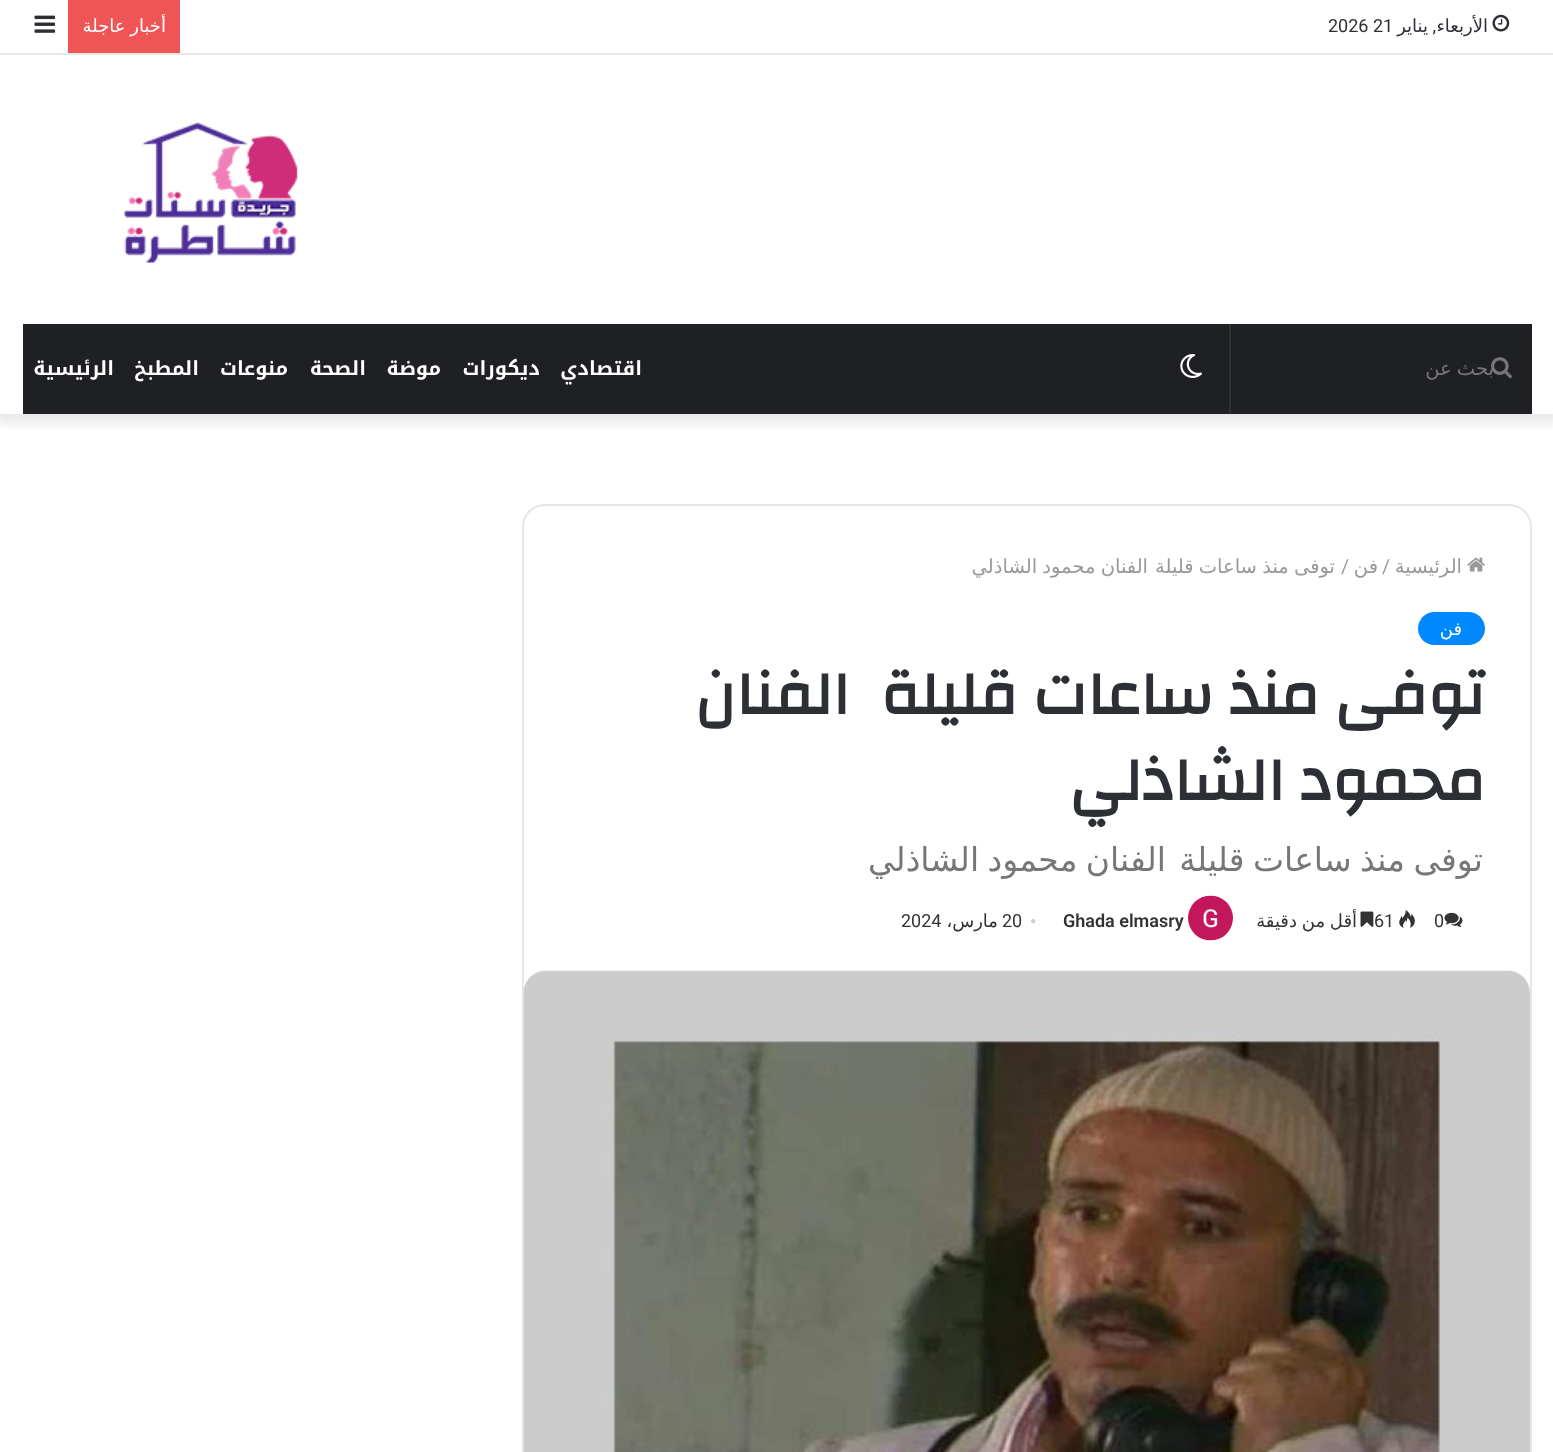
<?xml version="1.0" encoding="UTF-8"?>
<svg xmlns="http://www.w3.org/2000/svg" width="1553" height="1452">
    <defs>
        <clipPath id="clip1"><rect x="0" y="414" width="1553" height="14"/></clipPath>
        <filter id="blur1" x="-50%" y="-200%" width="200%" height="500%"><feGaussianBlur stdDeviation="7.5"/></filter>
    </defs>
    <rect width="100%" height="100%" fill="#FFFFFF"/>
    <g clip-path="url(#clip1)">
        <rect x="-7" y="-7" width="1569" height="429" fill="#000000" fill-opacity="0.1" filter="url(#blur1)"/>
    </g>
    <rect x="0" y="53" width="1553" height="2" fill="#E6E6E6"/>
    <image x="1492" y="14" width="18" height="18" href="img_01.png"/>
    <text x="1488" y="32" font-family="DejaVu Sans" font-size="18" direction="rtl" fill="#2C2F34">الأربعاء</text>
    <text x="1436" y="32" font-family="Roboto" font-size="18" direction="rtl" fill="#2C2F34">,</text>
    <text x="1428" y="32" font-family="DejaVu Sans" font-size="18" direction="rtl" fill="#2C2F34">يناير</text>
    <text x="1328" y="32" font-family="Roboto" font-size="18" fill="#2C2F34">2026 21</text>
    <rect x="68" y="0" width="112" height="53" fill="#F05555"/>
    <text x="166" y="32" word-spacing="-1" font-family="DejaVu Sans" font-size="18" direction="rtl" fill="#FFFFFF">أخبار عاجلة</text>
    <image x="34" y="15" width="22" height="18" href="img_02.png"/>
    <image x="124" y="122" width="174" height="141" href="img_03.png"/>
    <rect x="23" y="324" width="1509" height="90" fill="#1F2024"/>
    <rect x="1229" y="324" width="2" height="90" fill="#2F3033"/>
    <text x="1494" y="375" word-spacing="-1" font-family="DejaVu Sans" font-size="19.5" direction="rtl" fill="#777777">بحث عن</text>
    <image x="1491" y="357" width="21" height="22" href="img_04.png"/>
    <image x="1180" y="354" width="22" height="24" href="img_05.png"/>
    <text x="642" y="375" font-family="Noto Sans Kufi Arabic" font-size="19.5" font-weight="700" direction="rtl" fill="#FFFFFF">اقتصادي</text>
    <text x="540" y="375" font-family="Noto Sans Kufi Arabic" font-size="19.5" font-weight="700" direction="rtl" fill="#FFFFFF">ديكورات</text>
    <text x="441" y="375" font-family="Noto Sans Kufi Arabic" font-size="19.5" font-weight="700" direction="rtl" fill="#FFFFFF">موضة</text>
    <text x="366" y="375" font-family="Noto Sans Kufi Arabic" font-size="19.5" font-weight="700" direction="rtl" fill="#FFFFFF">الصحة</text>
    <text x="288" y="375" font-family="Noto Sans Kufi Arabic" font-size="19.5" font-weight="700" direction="rtl" fill="#FFFFFF">منوعات</text>
    <text x="199" y="375" font-family="Noto Sans Kufi Arabic" font-size="19.5" font-weight="700" direction="rtl" fill="#FFFFFF">المطبخ</text>
    <text x="114" y="375" font-family="Noto Sans Kufi Arabic" font-size="19.5" font-weight="700" direction="rtl" fill="#FFFFFF">الرئيسية</text>
    <rect x="523" y="505" width="1008" height="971" rx="22" fill="none" stroke="#E6E6E6" stroke-width="2"/>
    <image x="1467" y="557" width="18" height="15" href="img_06.png"/>
    <text x="1462" y="573" font-family="DejaVu Sans" font-size="19.5" direction="rtl" fill="#999999">الرئيسية</text>
    <text x="1382" y="573" font-family="Roboto" font-size="19.5" fill="#999999">/</text>
    <text x="1378" y="573" font-family="DejaVu Sans" font-size="19.5" direction="rtl" fill="#999999">فن</text>
    <text x="1341" y="573" font-family="Roboto" font-size="19.5" fill="#999999">/</text>
    <text x="1335" y="573" word-spacing="-1" font-family="DejaVu Sans" font-size="19.5" direction="rtl" fill="#999999">توفى منذ ساعات قليلة</text>
    <text x="1148" y="573" word-spacing="-1" font-family="DejaVu Sans" font-size="19.5" direction="rtl" fill="#999999">الفنان محمود الشاذلي</text>
    <rect x="1418" y="612" width="67" height="33" rx="16.5" fill="#0088FF"/>
    <text x="1462" y="635" font-family="DejaVu Sans" font-size="18" direction="rtl" fill="#FFFFFF">فن</text>
    <text font-family="Changa" font-size="61.5" font-weight="700" direction="rtl" fill="#2C2F34" xml:space="preserve"><tspan x="1485" y="714">توفى منذ ساعات قليلة  الفنان</tspan><tspan x="1485" y="800">محمود الشاذلي</tspan></text>
    <text x="1483" y="871" word-spacing="-2" font-family="DejaVu Sans" font-size="33" direction="rtl" fill="#777777">توفى منذ ساعات قليلة</text>
    <text x="1166" y="871" word-spacing="-2" font-family="DejaVu Sans" font-size="33" direction="rtl" fill="#777777">الفنان محمود الشاذلي</text>
    <image x="1444" y="912" width="19" height="15" href="img_07.png"/>
    <text x="1434" y="927" font-family="Roboto" font-size="18" fill="#333333">0</text>
    <image x="1399" y="910" width="16" height="18" href="img_08.png"/>
    <text x="1374" y="927" font-family="Roboto" font-size="18" fill="#333333">61</text>
    <image x="1360" y="911" width="14" height="16" href="img_09.png"/>
    <text x="1357" y="927" word-spacing="-1" font-family="DejaVu Sans" font-size="18" direction="rtl" fill="#333333">أقل من دقيقة</text>
    <image x="1188" y="895" width="45" height="46" href="img_10.png"/>
    <text x="1063" y="927" font-family="Roboto" font-size="18" font-weight="600" fill="#333333">Ghada elmasry</text>
    <text x="1030" y="927" font-family="Liberation Serif" font-size="18" fill="#CCCCCC">•</text>
    <text x="1002" y="927" font-family="Roboto" font-size="18" fill="#333333">20</text>
    <text x="998" y="927" font-family="DejaVu Sans" font-size="18" direction="rtl" fill="#333333">مارس،</text>
    <text x="901" y="927" font-family="Roboto" font-size="18" fill="#333333">2024</text>
    <image x="523" y="970" width="1007" height="482" href="img_11.png"/>
</svg>
